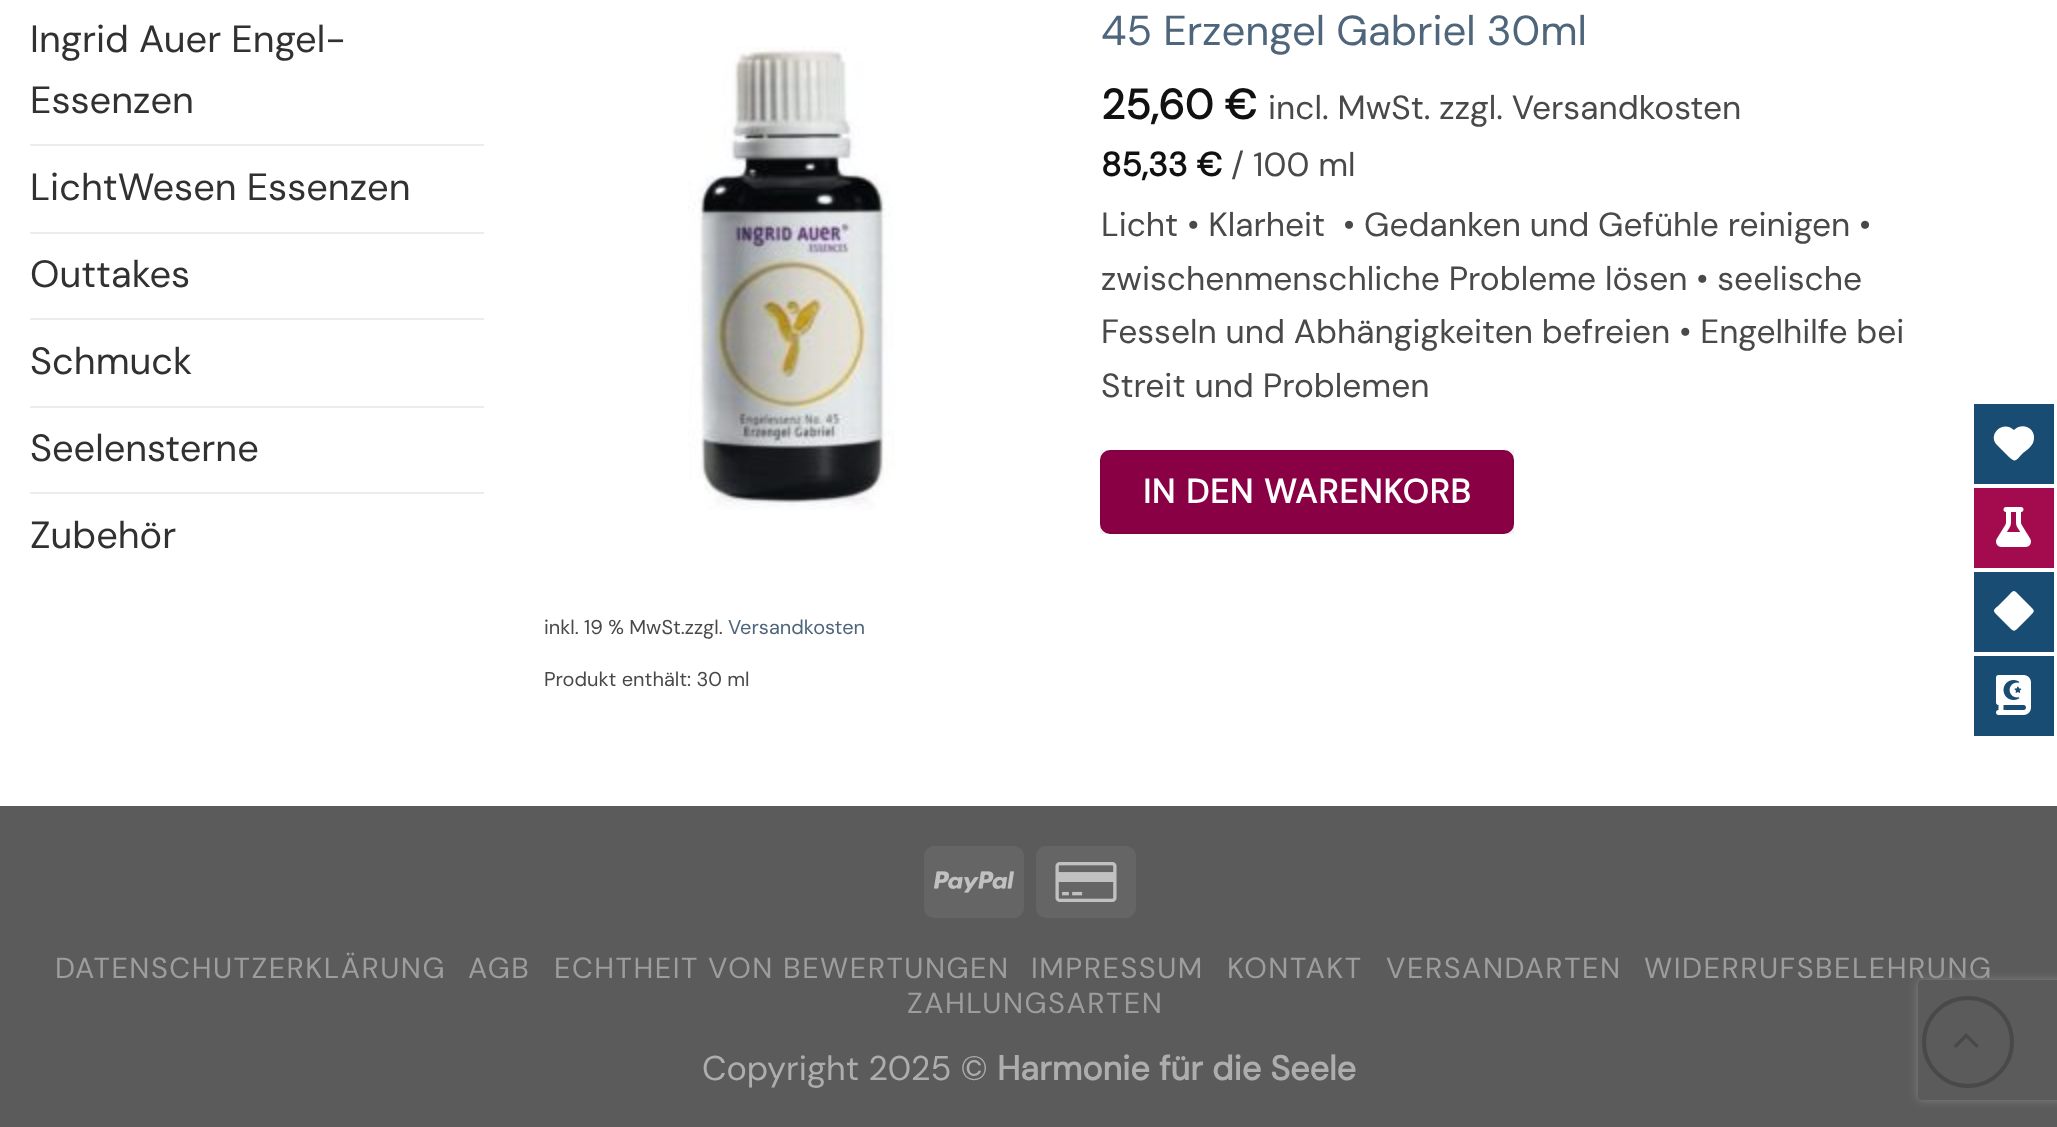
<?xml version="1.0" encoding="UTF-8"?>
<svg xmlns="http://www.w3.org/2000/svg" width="2057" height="1127">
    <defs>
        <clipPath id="clip1"><path d="M 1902 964 H 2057 V 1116 H 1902 Z M 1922 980 H 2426 C 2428 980 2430 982 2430 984 V 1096 C 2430 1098 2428 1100 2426 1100 H 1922 C 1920 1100 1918 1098 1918 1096 V 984 C 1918 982 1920 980 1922 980 Z" clip-rule="evenodd"/></clipPath>
        <filter id="blur1" x="-50%" y="-200%" width="200%" height="500%"><feGaussianBlur stdDeviation="5"/></filter>
    </defs>
    <rect width="100%" height="100%" fill="#FFFFFF"/>
    <text font-family="DM Sans" font-size="38" fill="#313131">
        <tspan x="30" y="52">Ingrid Auer Engel-</tspan>
        <tspan x="30" y="113">Essenzen</tspan>
    </text>
    <rect x="30" y="144" width="454" height="2" fill="#ECECEC"/>
    <text x="30" y="200" font-family="DM Sans" font-size="38" fill="#313131">LichtWesen Essenzen</text>
    <rect x="30" y="232" width="454" height="2" fill="#ECECEC"/>
    <text x="30" y="287" font-family="DM Sans" font-size="38" fill="#313131">Outtakes</text>
    <rect x="30" y="318" width="454" height="2" fill="#ECECEC"/>
    <text x="30" y="374" font-family="DM Sans" font-size="38" fill="#313131">Schmuck</text>
    <rect x="30" y="406" width="454" height="2" fill="#ECECEC"/>
    <text x="30" y="461" font-family="DM Sans" font-size="38" fill="#313131">Seelensterne</text>
    <rect x="30" y="492" width="454" height="2" fill="#ECECEC"/>
    <text x="30" y="548" font-family="DM Sans" font-size="38" fill="#313131">Zubehör</text>
    <image x="688" y="46" width="207" height="464" href="img_01.png"/>
    <text x="1101" y="45" font-family="DM Sans" font-size="41.9" fill="#4E657B">45 Erzengel Gabriel 30ml</text>
    <text x="1101" y="119" font-family="DM Sans" font-size="41.9" font-weight="700" fill="#111111">25,60 €</text>
    <text x="1268" y="119" font-family="DM Sans" font-size="33.5" fill="#494949">incl. MwSt. zzgl. Versandkosten</text>
    <text x="1101" y="176" font-family="DM Sans" font-size="33.5" font-weight="700" fill="#111111">85,33 €</text>
    <text x="1231" y="176" font-family="DM Sans" font-size="33.5" fill="#494949">/ 100 ml</text>
    <text font-family="DM Sans" font-size="33.5" fill="#494949" xml:space="preserve"><tspan x="1101" y="236">Licht • Klarheit  • Gedanken und Gefühle reinigen •</tspan><tspan x="1101" y="290">zwischenmenschliche Probleme lösen • seelische</tspan><tspan x="1101" y="343">Fesseln und Abhängigkeiten befreien • Engelhilfe bei</tspan><tspan x="1101" y="397">Streit und Problemen</tspan></text>
    <rect x="1100" y="450" width="414" height="84" rx="10" fill="#8A0045"/>
    <rect x="1101" y="451" width="412" height="82" fill="none" stroke="#000000" stroke-opacity="0.05" stroke-width="2"/>
    <text x="1143" y="503" font-family="DM Sans" font-size="33.5" font-weight="700" letter-spacing="1" fill="#FFFFFF">IN DEN WARENKORB</text>
    <text x="544" y="634" font-family="DM Sans" font-size="20" fill="#494949">inkl. 19 % MwSt.zzgl.</text>
    <text x="728" y="634" font-family="DM Sans" font-size="20" fill="#4E657B">Versandkosten</text>
    <text x="544" y="686" font-family="DM Sans" font-size="20" fill="#494949">Produkt enthält: 30 ml</text>
    <rect x="0" y="806" width="2057" height="321" fill="#5B5B5B"/>
    <rect x="924" y="846" width="100" height="72" rx="10" fill="#656565"/>
    <image x="934" y="871" width="80" height="22" href="img_02.png"/>
    <rect x="1036" y="846" width="100" height="72" rx="10" fill="#656565"/>
    <image x="1055" y="862" width="62" height="40" href="img_03.png"/>
    <text x="55" y="978" font-family="DM Sans" font-size="29.1" letter-spacing="1.5" fill="#9D9D9D">DATENSCHUTZERKLÄRUNG</text>
    <text x="468" y="978" font-family="DM Sans" font-size="29.1" letter-spacing="1.5" fill="#9D9D9D">AGB</text>
    <text x="554" y="978" font-family="DM Sans" font-size="29.1" letter-spacing="1.5" fill="#9D9D9D">ECHTHEIT VON BEWERTUNGEN</text>
    <text x="1031" y="978" font-family="DM Sans" font-size="29.1" letter-spacing="1.5" fill="#9D9D9D">IMPRESSUM</text>
    <text x="1227" y="978" font-family="DM Sans" font-size="29.1" letter-spacing="1.5" fill="#9D9D9D">KONTAKT</text>
    <text x="1386" y="978" font-family="DM Sans" font-size="29.1" letter-spacing="1.5" fill="#9D9D9D">VERSANDARTEN</text>
    <text x="1644" y="978" font-family="DM Sans" font-size="29.1" letter-spacing="1.5" fill="#9D9D9D">WIDERRUFSBELEHRUNG</text>
    <text x="907" y="1013" font-family="DM Sans" font-size="29.1" letter-spacing="1.5" fill="#9D9D9D">ZAHLUNGSARTEN</text>
    <text x="702" y="1080" font-family="DM Sans" font-size="34.25" fill="#ADADAD">Copyright 2025 ©</text>
    <text x="997" y="1080" font-family="DM Sans" font-size="34.25" font-weight="700" fill="#ADADAD">Harmonie für die Seele</text>
    <g clip-path="url(#clip1)">
        <rect x="1918" y="980" width="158" height="120" rx="4" fill="#808080" filter="url(#blur1)"/>
    </g>
    <circle cx="1968" cy="1042" r="44" fill="none" stroke="#494949" stroke-width="4"/>
    <image x="1954" y="1033" width="25" height="15" href="img_04.png"/>
    <rect x="1974" y="404" width="80" height="80" fill="#184C72"/>
    <path d="M 1998 446 L 2012 460 L 1998 446 L 2009 457 C 2016 464 2017 459 2023 453 C 2027 450 2031 447 2033 443 C 2038 430 2024 421 2014 430 C 2002 419 1986 436 1998 446 Z" fill="#FFFFFF"/>
    <rect x="1974" y="488" width="80" height="80" fill="#A40B4E"/>
    <image x="1996" y="507" width="35" height="40" href="img_05.png"/>
    <rect x="1974" y="572" width="80" height="80" fill="#184C72"/>
    <path d="M 2016 592 C 2013 589 2011 593 2009 595 L 1998 606 C 1996 608 1992 610 1995 613 L 2009 627 C 2014 632 2014 632 2019 627 L 2030 616 C 2035 611 2035 611 2030 606 Z" fill="#FFFFFF"/>
    <rect x="1974" y="656" width="80" height="80" fill="#184C72"/>
    <image x="1996" y="675" width="35" height="40" href="img_06.png"/>
</svg>
